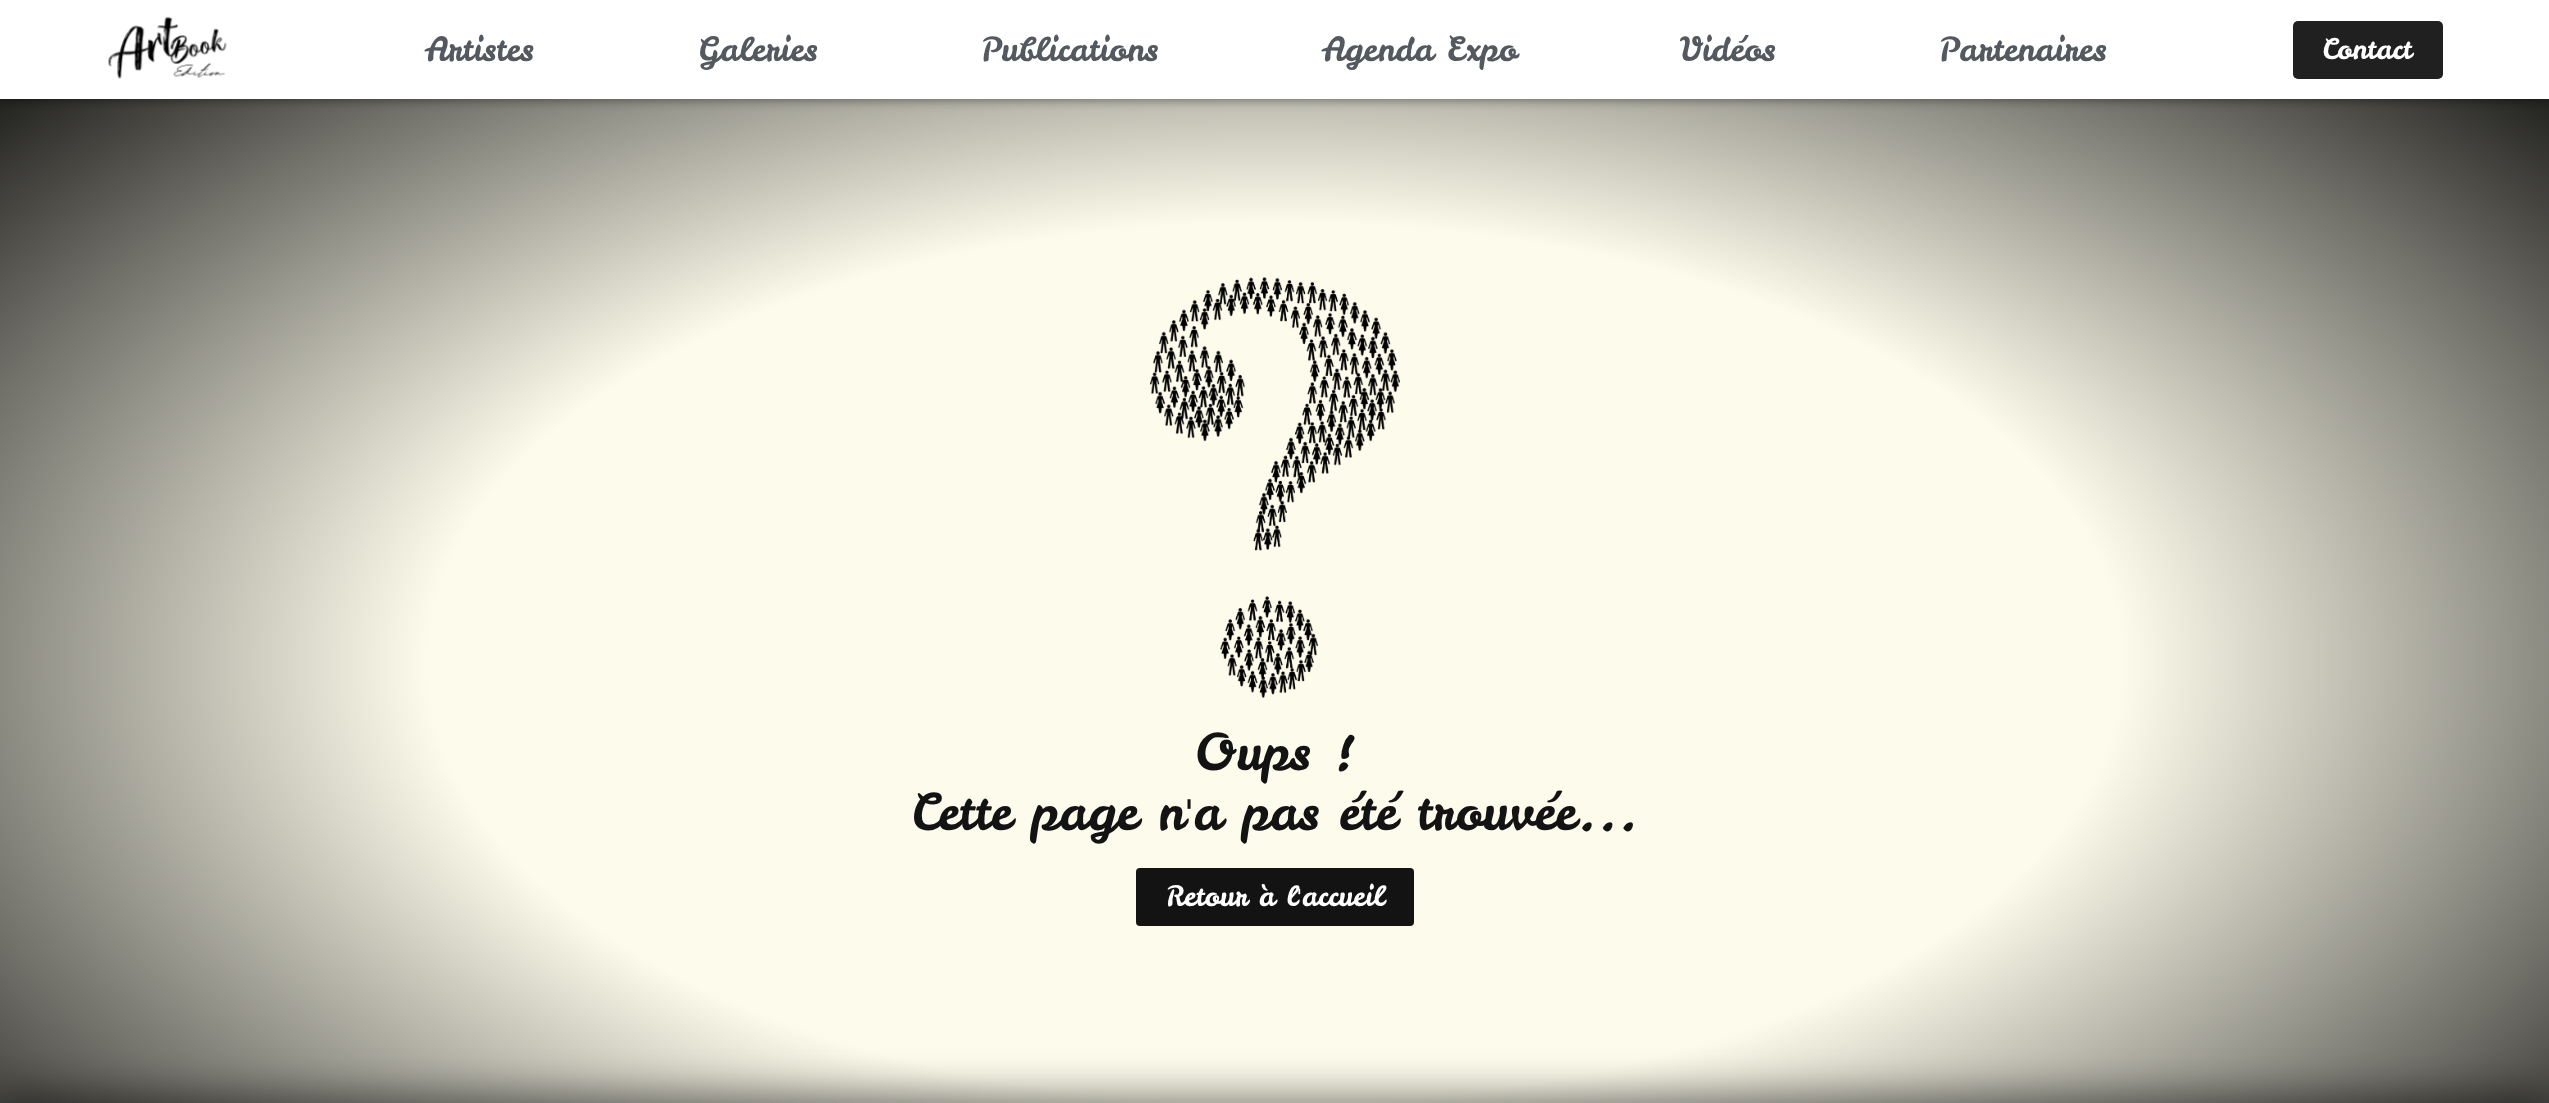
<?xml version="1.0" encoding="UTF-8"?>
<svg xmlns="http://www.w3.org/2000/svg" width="2549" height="1103">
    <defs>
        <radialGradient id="g1" gradientUnits="userSpaceOnUse" cx="0" cy="0" r="1" gradientTransform="matrix(1803 0 0 937 1275 663)"><stop offset="0.47" stop-color="#FDFBEB"/><stop offset="1" stop-color="#000000"/></radialGradient>
        <filter id="blur1" x="-50%" y="-200%" width="200%" height="500%"><feGaussianBlur stdDeviation="6"/></filter>
        <filter id="blur2" x="-50%" y="-200%" width="200%" height="500%"><feGaussianBlur stdDeviation="20.5"/></filter>
    </defs>
    <rect width="100%" height="100%" fill="#FFFFFF"/>
    <rect x="0" y="99" width="2549" height="1004" fill="url(#g1)"/>
    <rect x="0" y="0" width="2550" height="99" fill="#000000" fill-opacity="0.5" filter="url(#blur1)"/>
    <rect x="0" y="0" width="2549" height="99" fill="#FFFFFF"/>
    <image x="108" y="16" width="119" height="63" href="img_01.png"/>
    <text x="425" y="61" font-family="Leckerli One" font-size="33" fill="#54595F">Artistes</text>
    <text x="698" y="61" font-family="Leckerli One" font-size="33" fill="#54595F">Galeries</text>
    <text x="981" y="61" font-family="Leckerli One" font-size="33" fill="#54595F">Publications</text>
    <text x="1322" y="61" font-family="Leckerli One" font-size="33" fill="#54595F">Agenda Expo</text>
    <text x="1680" y="61" font-family="Leckerli One" font-size="33" fill="#54595F">Vidéos</text>
    <text x="1939" y="61" font-family="Leckerli One" font-size="33" fill="#54595F">Partenaires</text>
    <rect x="2293" y="21" width="150" height="58" rx="5" fill="#202020"/>
    <text x="2322" y="59" font-family="Leckerli One" font-size="28" fill="#FFFFFF">Contact</text>
    <image x="1150" y="277" width="250" height="421" href="img_02.png"/>
    <text x="1194" y="770" font-family="Leckerli One" font-size="50" fill="#131313">Oups !</text>
    <text x="911" y="830" font-family="Leckerli One" font-size="50" fill="#131313">Cette page n'a pas été trouvée...</text>
    <rect x="1136" y="868" width="278" height="58" rx="4" fill="#131313"/>
    <text x="1166" y="906" font-family="Leckerli One" font-size="28" fill="#FFFFFF">Retour à l'accueil</text>
    <rect x="0" y="1096" width="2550" height="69" fill="#000000" fill-opacity="0.5" filter="url(#blur2)"/>
</svg>
